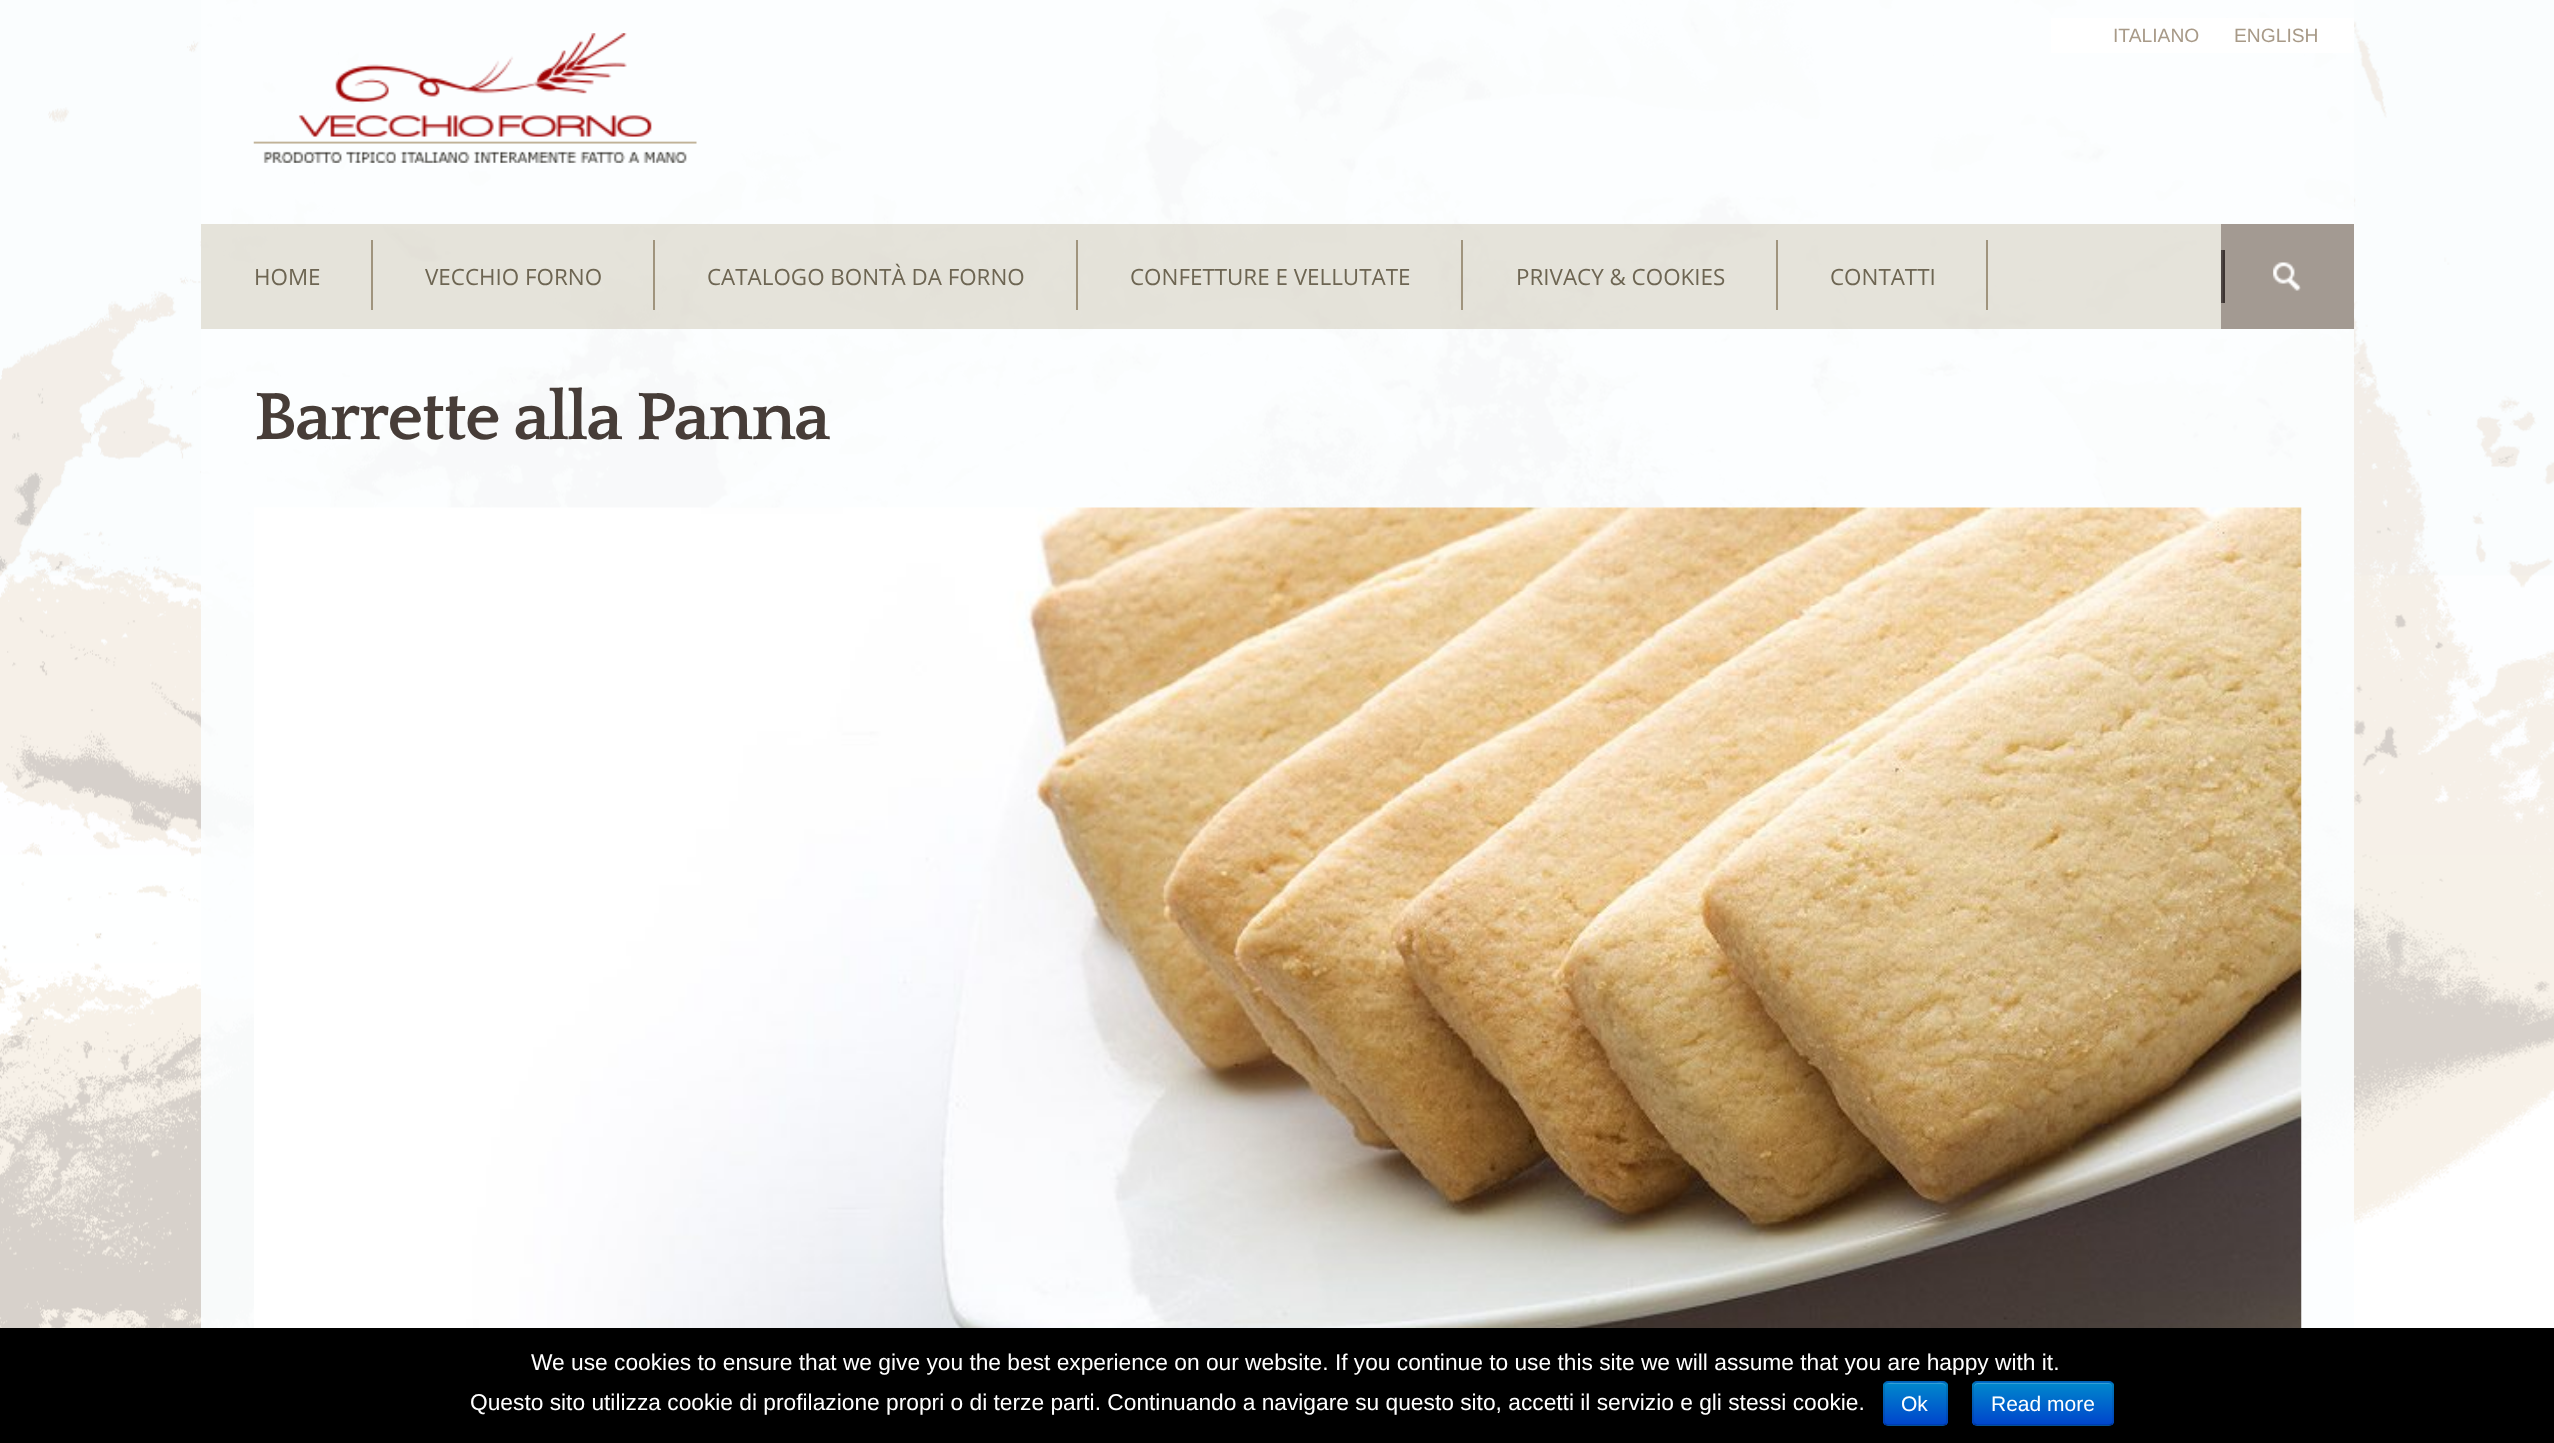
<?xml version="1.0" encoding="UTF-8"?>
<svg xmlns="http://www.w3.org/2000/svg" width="2554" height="1443">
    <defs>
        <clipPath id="clip1"><rect x="1883" y="1381" width="65" height="45" rx="5"/></clipPath>
        <linearGradient id="g1" gradientUnits="userSpaceOnUse" x1="1915" y1="1383" x2="1915" y2="1425"><stop offset="0" stop-color="#0088CC"/><stop offset="1" stop-color="#0044CC"/></linearGradient>
        <clipPath id="clip2"><rect x="1972" y="1381" width="142" height="45" rx="5"/></clipPath>
        <linearGradient id="g2" gradientUnits="userSpaceOnUse" x1="2043" y1="1383" x2="2043" y2="1425"><stop offset="0" stop-color="#0088CC"/><stop offset="1" stop-color="#0044CC"/></linearGradient>
    </defs>
    <rect width="100%" height="100%" fill="#FFFFFF"/>
    <image x="0" y="0" width="2554" height="1328" href="img_01.png"/>
    <rect x="201" y="0" width="2153" height="1328" fill="#FCFEFF" fill-opacity="0.9"/>
    <image x="253" y="33" width="444" height="130" href="img_02.png"/>
    <rect x="2051" y="18" width="303" height="35" fill="#FFFFFF"/>
    <text x="2113" y="42" font-family="Liberation Sans" font-size="19.25" fill="#A89A88">ITALIANO</text>
    <text x="2234" y="42" font-family="Liberation Sans" font-size="19.25" fill="#A89A88">ENGLISH</text>
    <rect x="201" y="224" width="2153" height="105" fill="#CDC8B5" fill-opacity="0.5"/>
    <text x="254" y="285" font-family="Open Sans" font-size="22.4" fill="#6D6552">HOME</text>
    <rect x="371" y="240" width="2" height="70" fill="#A0947D"/>
    <text x="425" y="285" font-family="Open Sans" font-size="22.4" fill="#6D6552">VECCHIO FORNO</text>
    <rect x="653" y="240" width="2" height="70" fill="#A0947D"/>
    <text x="707" y="285" font-family="Open Sans" font-size="22.4" fill="#6D6552">CATALOGO BONTÀ DA FORNO</text>
    <rect x="1076" y="240" width="2" height="70" fill="#A0947D"/>
    <text x="1130" y="285" font-family="Open Sans" font-size="22.4" fill="#6D6552">CONFETTURE E VELLUTATE</text>
    <rect x="1461" y="240" width="2" height="70" fill="#A0947D"/>
    <text x="1516" y="285" font-family="Open Sans" font-size="22.4" fill="#6D6552">PRIVACY &amp; COOKIES</text>
    <rect x="1776" y="240" width="2" height="70" fill="#A0947D"/>
    <text x="1830" y="285" font-family="Open Sans" font-size="22.4" fill="#6D6552">CONTATTI</text>
    <rect x="1986" y="240" width="2" height="70" fill="#A0947D"/>
    <rect x="2223" y="250" width="2" height="53" fill="#252525"/>
    <rect x="2221" y="250" width="2" height="53" fill="#444444"/>
    <rect x="2221" y="224" width="133" height="105" fill="#594841" fill-opacity="0.47"/>
    <image x="2273" y="262" width="28" height="29" href="img_03.png"/>
    <text x="254" y="439" font-family="Quattrocento" font-size="70" font-weight="700" letter-spacing="-1.75" fill="#473D38">Barrette alla Panna</text>
    <image x="254" y="507" width="2048" height="821" href="img_04.png"/>
    <rect x="0" y="1328" width="2554" height="115" fill="#000000"/>
    <text x="531" y="1370" font-family="Liberation Sans" font-size="22.75" fill="#FFFFFF">We use cookies to ensure that we give you the best experience on our website. If you continue to use this site we will assume that you are happy with it.</text>
    <text x="470" y="1410" font-family="Liberation Sans" font-size="22.75" fill="#FFFFFF">Questo sito utilizza cookie di profilazione propri o di terze parti. Continuando a navigare su questo sito, accetti il servizio e gli stessi cookie.</text>
    <rect x="1883" y="1381" width="65" height="45" rx="5" fill="#006DCC"/>
    <g clip-path="url(#clip1)">
        <rect x="1883" y="1383" width="65" height="42" fill="url(#g1)"/>
    </g>
    <path d="M 1888 1384 H 1942 C 1944 1384 1946 1386 1946 1388 C 1946 1381 1938 1383 1933 1383 H 1898 C 1893 1383 1885 1381 1885 1388 C 1885 1386 1886 1384 1888 1384 Z" fill="#339FD6"/>
    <path d="M 1945.5 1424 C 1945 1425 1943.5 1425.5 1942.5 1425.5 H 1888 C 1887 1425.5 1886 1425 1885 1424" fill="none" stroke="#000000" stroke-opacity="0.25" stroke-width="1.8"/>
    <path d="M 1885 1424 C 1884.5 1423.5 1884 1422 1884 1421 V 1386 C 1884 1385 1884.5 1383.5 1885 1383 C 1886 1382 1887 1381.5 1888 1381.5 H 1942.5 C 1943.5 1381.5 1945 1382 1945.5 1383 C 1946.5 1383.5 1947 1385 1947 1386 V 1421 C 1947 1422 1946.5 1423.5 1945.5 1424" fill="none" stroke="#000000" stroke-opacity="0.1" stroke-width="1.8"/>
    <text x="1901" y="1411" font-family="Liberation Sans" font-size="21" fill="#FFFFFF">Ok</text>
    <rect x="1972" y="1381" width="142" height="45" rx="5" fill="#006DCC"/>
    <g clip-path="url(#clip2)">
        <rect x="1972" y="1383" width="142" height="42" fill="url(#g2)"/>
    </g>
    <path d="M 1978 1384 H 2109 C 2111 1384 2112 1386 2112 1388 V 1387 C 2112 1385 2110 1383 2108 1383 H 1978 C 1976 1383 1974 1385 1974 1387 V 1388 C 1974 1386 1976 1384 1978 1384 Z" fill="#FFFFFF" fill-opacity="0.2"/>
    <path d="M 2112 1424 L 2109 1425.5 H 1977 L 1974.5 1424" fill="none" stroke="#000000" stroke-opacity="0.25" stroke-width="1.8"/>
    <path d="M 1974.5 1424 C 1972 1422 1973 1417.5 1973 1415 V 1403.5 C 1973 1376.5 1969.5 1381.5 1999.5 1381.5 H 2109 C 2114 1381.5 2113 1388.5 2113 1392 V 1409.5 C 2113 1412.5 2114.5 1421.5 2112 1424" fill="none" stroke="#000000" stroke-opacity="0.1" stroke-width="1.8"/>
    <text x="1991" y="1411" font-family="Liberation Sans" font-size="21" fill="#FFFFFF">Read more</text>
</svg>
